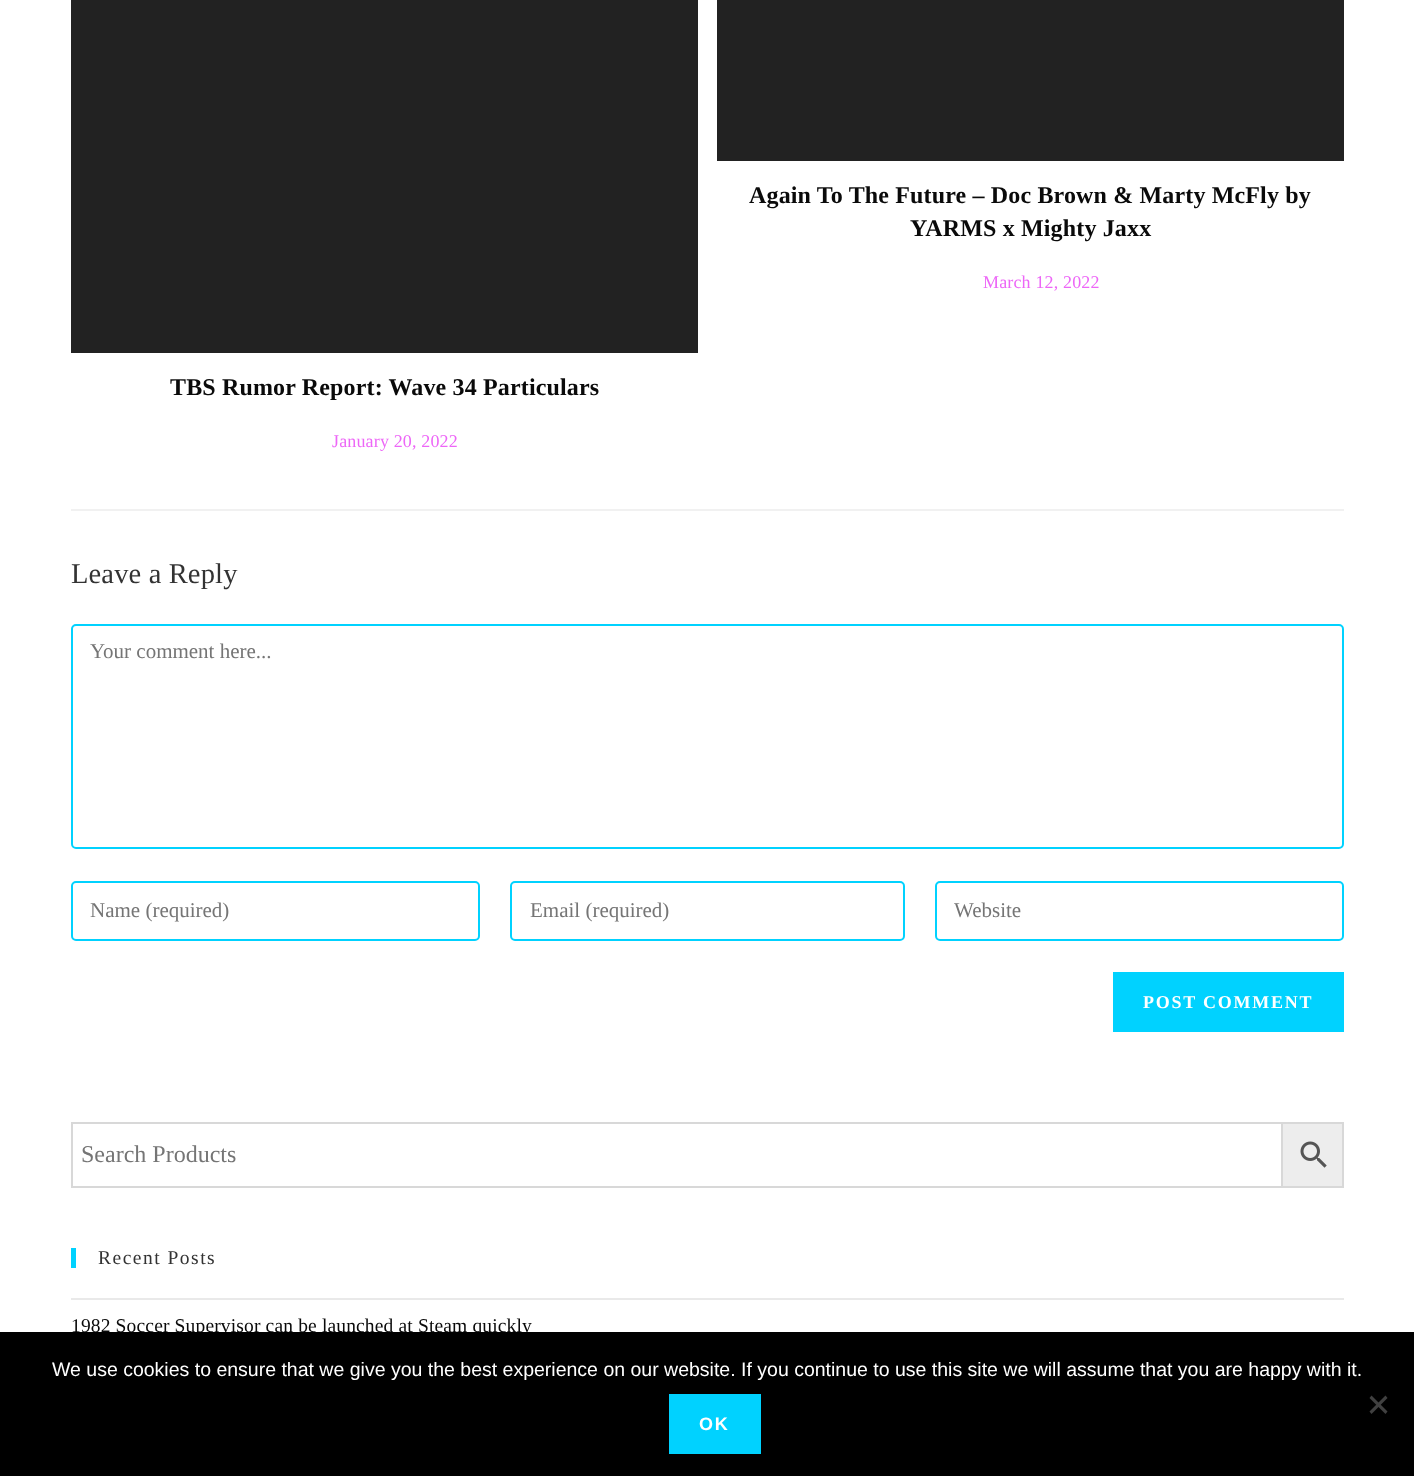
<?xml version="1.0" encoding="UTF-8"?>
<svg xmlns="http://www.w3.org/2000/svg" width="1414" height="1476">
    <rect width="100%" height="100%" fill="#FFFFFF"/>
    <rect x="717" y="0" width="627" height="161" fill="#222222"/>
    <text x="749" y="203" font-family="Liberation Serif" font-size="24" font-weight="700" letter-spacing="0.15" fill="#0A0A0A">Again To The Future – Doc Brown &amp; Marty McFly by</text>
    <text x="910" y="236" font-family="Liberation Serif" font-size="24" font-weight="700" letter-spacing="0.15" fill="#0A0A0A">YARMS x Mighty Jaxx</text>
    <text x="983" y="288" font-family="Liberation Serif" font-size="18" letter-spacing="0.15" fill="#ED67F7">March 12, 2022</text>
    <rect x="71" y="0" width="627" height="353" fill="#222222"/>
    <text x="170" y="395" font-family="Liberation Serif" font-size="24" font-weight="700" letter-spacing="0.15" fill="#0A0A0A">TBS Rumor Report: Wave 34 Particulars</text>
    <text x="332" y="447" font-family="Liberation Serif" font-size="18" letter-spacing="0.15" fill="#ED67F7">January 20, 2022</text>
    <rect x="71" y="509" width="1273" height="2" fill="#F1F1F1"/>
    <text x="71" y="583" font-family="Liberation Serif" font-size="28.5" letter-spacing="0.15" fill="#333333">Leave a Reply</text>
    <rect x="72" y="625" width="1271" height="223" rx="4" fill="none" stroke="#00D2FF" stroke-width="2"/>
    <text x="90" y="658" font-family="Liberation Serif" font-size="21" fill="#757575">Your comment here...</text>
    <rect x="72" y="882" width="407" height="58" rx="4" fill="none" stroke="#00D2FF" stroke-width="2"/>
    <text x="90" y="917" font-family="Liberation Serif" font-size="21" fill="#757575">Name (required)</text>
    <rect x="511" y="882" width="393" height="58" rx="4" fill="none" stroke="#00D2FF" stroke-width="2"/>
    <text x="530" y="917" font-family="Liberation Serif" font-size="21" fill="#757575">Email (required)</text>
    <rect x="936" y="882" width="407" height="58" rx="4" fill="none" stroke="#00D2FF" stroke-width="2"/>
    <text x="954" y="917" font-family="Liberation Serif" font-size="21" fill="#757575">Website</text>
    <rect x="1113" y="972" width="231" height="60" fill="#00D2FF"/>
    <text x="1143" y="1008" font-family="Liberation Serif" font-size="18" font-weight="700" letter-spacing="1.75" fill="#FFFFFF">POST COMMENT</text>
    <rect x="1282" y="1123" width="61" height="64" fill="#EDEDED" stroke="#D8D8D8" stroke-width="2"/>
    <rect x="72" y="1123" width="1210" height="64" fill="none" stroke="#D8D8D8" stroke-width="2"/>
    <text x="81" y="1162" font-family="Liberation Serif" font-size="24" fill="#757575">Search Products</text>
    <image x="1300" y="1141" width="27" height="27" href="img_01.png"/>
    <rect x="71" y="1248" width="5" height="20" fill="#00D2FF"/>
    <text x="98" y="1264" font-family="Liberation Serif" font-size="19.5" letter-spacing="1.5" fill="#333333">Recent Posts</text>
    <rect x="71" y="1298" width="1273" height="2" fill="#E9E9E9"/>
    <text x="71" y="1332" font-family="Liberation Serif" font-size="19.5" letter-spacing="0.15" fill="#0A0A0A">1982 Soccer Supervisor can be launched at Steam quickly</text>
    <rect x="0" y="1332" width="1414" height="144" fill="#000000"/>
    <text x="52" y="1376" font-family="Liberation Sans" font-size="19.5" fill="#FFFFFF">We use cookies to ensure that we give you the best experience on our website. If you continue to use this site we will assume that you are happy with it.</text>
    <path d="M 1385.5 1395.5 L 1387.5 1398 L 1371.5 1414 L 1369.5 1411.5 Z" fill="#404040"/>
    <path d="M 1369.5 1398 L 1371.5 1395.5 L 1387.5 1411.5 L 1385.5 1414 Z" fill="#404040"/>
    <rect x="669" y="1394" width="92" height="60" fill="#00D2FF"/>
    <text x="699" y="1430" font-family="Liberation Sans" font-size="18" font-weight="700" letter-spacing="1.75" fill="#FFFFFF">OK</text>
</svg>
